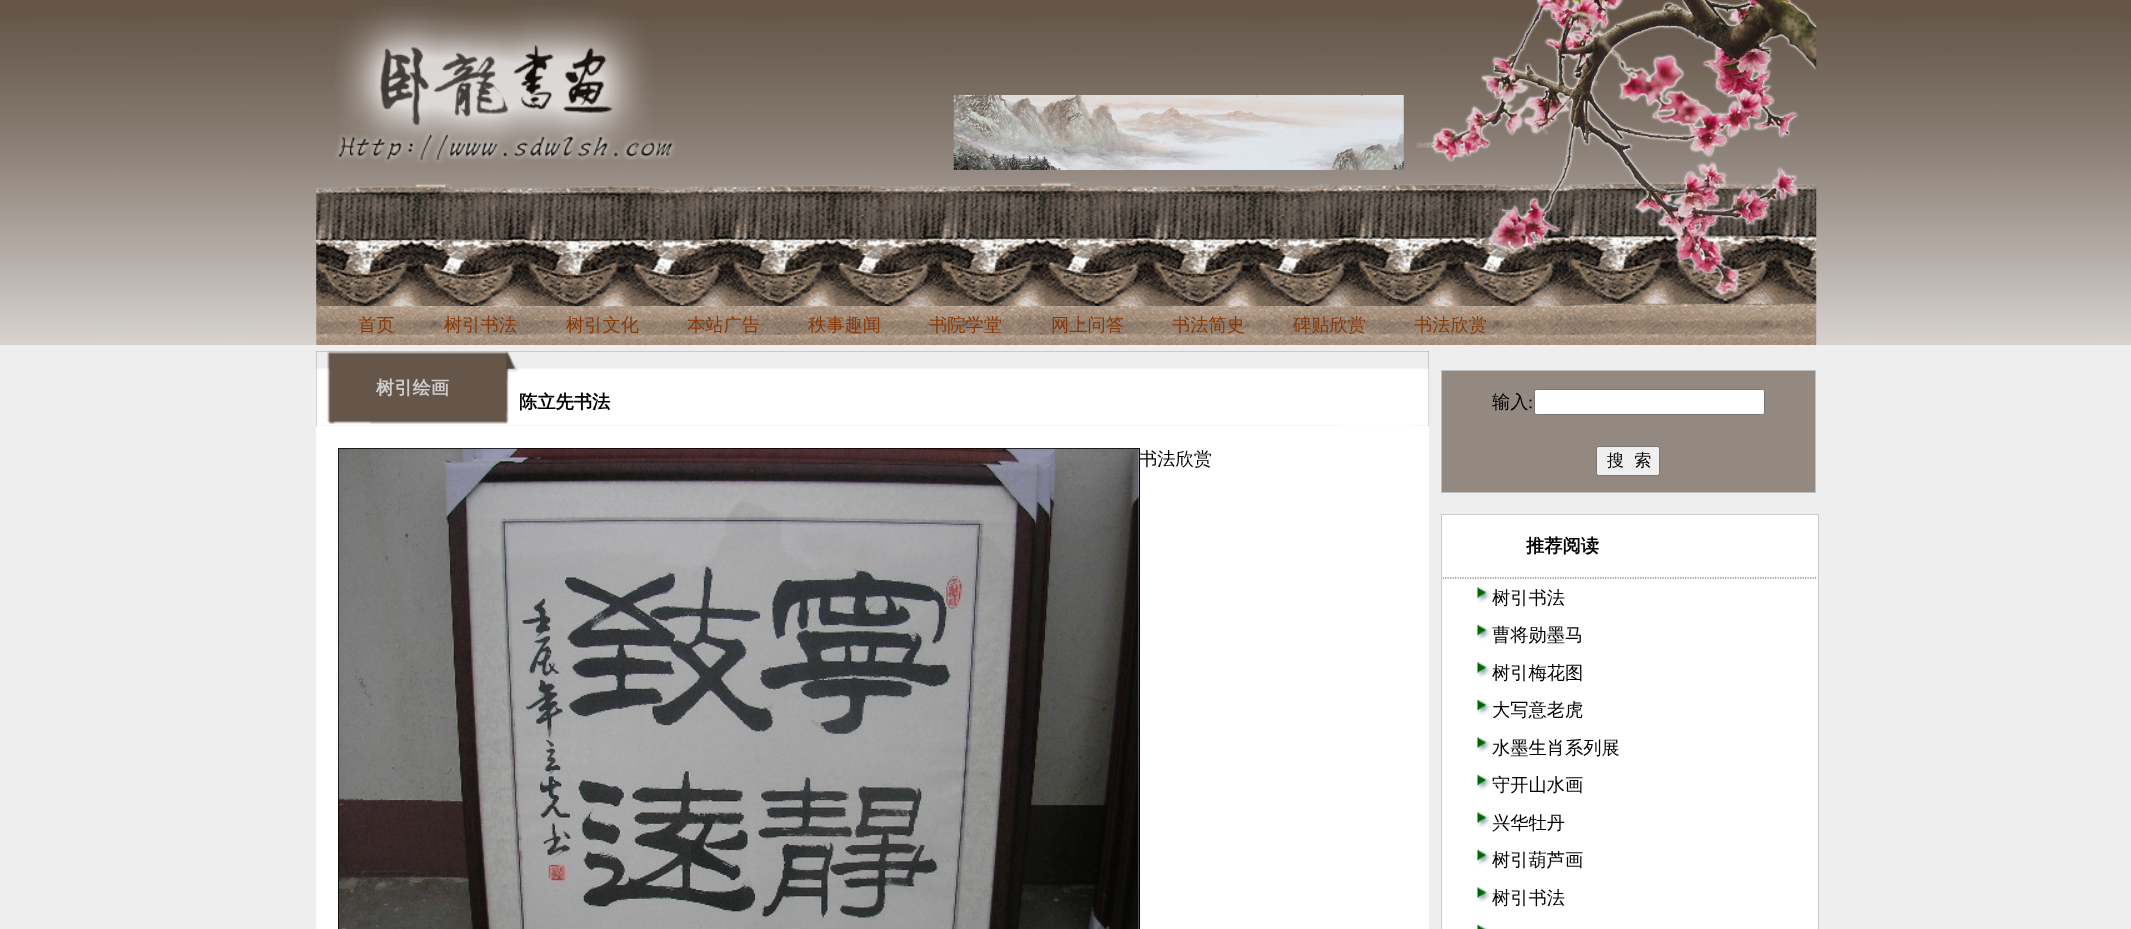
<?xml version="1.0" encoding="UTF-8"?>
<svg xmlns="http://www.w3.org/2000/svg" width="2131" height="929">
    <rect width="100%" height="100%" fill="#EEEEEE"/>
    <rect x="0" y="0" width="2131" height="345" fill="#655649"/>
    <image x="0" y="19" width="2131" height="326" href="img_01.png"/>
    <image x="316" y="182" width="1501" height="125" href="img_02.png"/>
    <image x="335" y="6" width="341" height="158" href="img_03.png"/>
    <image x="953" y="95" width="451" height="75" href="img_04.png"/>
    <image x="1416" y="0" width="401" height="297" href="img_05.png"/>
    <image x="316" y="306" width="1501" height="39" href="img_06.png"/>
    <text x="358" y="331" font-family="WenQuanYi Zen Hei" font-size="18.25" font-weight="500" fill="#893908">首页</text>
    <text x="444" y="331" font-family="WenQuanYi Zen Hei" font-size="18.25" font-weight="500" fill="#893908">树引书法</text>
    <text x="566" y="331" font-family="WenQuanYi Zen Hei" font-size="18.25" font-weight="500" fill="#893908">树引文化</text>
    <text x="687" y="331" font-family="WenQuanYi Zen Hei" font-size="18.25" font-weight="500" fill="#893908">本站广告</text>
    <text x="808" y="331" font-family="WenQuanYi Zen Hei" font-size="18.25" font-weight="500" fill="#893908">秩事趣闻</text>
    <text x="929" y="331" font-family="WenQuanYi Zen Hei" font-size="18.25" font-weight="500" fill="#893908">书院学堂</text>
    <text x="1051" y="331" font-family="WenQuanYi Zen Hei" font-size="18.25" font-weight="500" fill="#893908">网上问答</text>
    <text x="1172" y="331" font-family="WenQuanYi Zen Hei" font-size="18.25" font-weight="500" fill="#893908">书法简史</text>
    <text x="1293" y="331" font-family="WenQuanYi Zen Hei" font-size="18.25" font-weight="500" fill="#893908">碑贴欣赏</text>
    <text x="1414" y="331" font-family="WenQuanYi Zen Hei" font-size="18.25" font-weight="500" fill="#893908">书法欣赏</text>
    <rect x="316" y="351" width="1113" height="75" fill="#655649"/>
    <image x="316" y="351" width="1113" height="75" href="img_07.png"/>
    <text x="376" y="394" font-family="WenQuanYi Zen Hei" font-size="18.25" font-weight="700" fill="#CCCCCC">树引绘画</text>
    <text x="519" y="408" font-family="WenQuanYi Zen Hei" font-size="18.25" font-weight="700" fill="#000000">陈立先书法</text>
    <rect x="316" y="426" width="1113" height="503" fill="#FFFFFF"/>
    <rect x="338.5" y="448.5" width="801" height="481" fill="none" stroke="#000000"/>
    <image x="338" y="448" width="801" height="481" href="img_08.png"/>
    <text x="1139" y="465" font-family="WenQuanYi Zen Hei" font-size="18.25" font-weight="500" fill="#000000">书法欣赏</text>
    <rect x="1441.5" y="370.5" width="374" height="122" fill="#938980" stroke="#C0C0C0"/>
    <text x="1492" y="408" font-family="WenQuanYi Zen Hei" font-size="18.25" font-weight="500" fill="#000000">输入</text>
    <text x="1528" y="408" font-family="Liberation Serif" font-size="18.25" fill="#000000">:</text>
    <rect x="1534.5" y="389.5" width="230" height="25" rx="2" fill="#FFFFFF" stroke="#767676"/>
    <rect x="1596.5" y="446.5" width="63" height="29" rx="2" fill="#EFEFEF" stroke="#767676"/>
    <text x="1607" y="466" font-family="WenQuanYi Zen Hei" font-size="17" font-weight="500" fill="#000000" xml:space="preserve">搜  索</text>
    <rect x="1441.5" y="514.5" width="377" height="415" fill="#FFFFFF" stroke="#CCCCCC"/>
    <path d="M 1442.5 578 H 1817.5" fill="none" stroke="#655649" stroke-width="1.2" stroke-dasharray="1.25 1.25"/>
    <text x="1526" y="552" font-family="WenQuanYi Zen Hei" font-size="18.25" font-weight="700" fill="#000000">推荐阅读</text>
    <image x="1476" y="587" width="15" height="16" href="img_09.png"/>
    <text x="1492" y="604" font-family="WenQuanYi Zen Hei" font-size="18.25" font-weight="500" fill="#000000">树引书法</text>
    <image x="1476" y="624" width="15" height="17" href="img_10.png"/>
    <text x="1492" y="641" font-family="WenQuanYi Zen Hei" font-size="18.25" font-weight="500" fill="#000000">曹将勋墨马</text>
    <image x="1476" y="662" width="15" height="16" href="img_11.png"/>
    <text x="1492" y="679" font-family="WenQuanYi Zen Hei" font-size="18.25" font-weight="500" fill="#000000">树引梅花图</text>
    <image x="1476" y="699" width="15" height="17" href="img_10.png"/>
    <text x="1492" y="716" font-family="WenQuanYi Zen Hei" font-size="18.25" font-weight="500" fill="#000000">大写意老虎</text>
    <image x="1476" y="737" width="15" height="16" href="img_11.png"/>
    <text x="1492" y="754" font-family="WenQuanYi Zen Hei" font-size="18.25" font-weight="500" fill="#000000">水墨生肖系列展</text>
    <image x="1476" y="774" width="15" height="17" href="img_12.png"/>
    <text x="1492" y="791" font-family="WenQuanYi Zen Hei" font-size="18.25" font-weight="500" fill="#000000">守开山水画</text>
    <image x="1476" y="812" width="15" height="16" href="img_11.png"/>
    <text x="1492" y="829" font-family="WenQuanYi Zen Hei" font-size="18.25" font-weight="500" fill="#000000">兴华牡丹</text>
    <image x="1476" y="849" width="15" height="17" href="img_10.png"/>
    <text x="1492" y="866" font-family="WenQuanYi Zen Hei" font-size="18.25" font-weight="500" fill="#000000">树引葫芦画</text>
    <image x="1476" y="887" width="15" height="16" href="img_11.png"/>
    <text x="1492" y="904" font-family="WenQuanYi Zen Hei" font-size="18.25" font-weight="500" fill="#000000">树引书法</text>
    <image x="1477" y="924" width="12" height="5" href="img_13.png"/>
</svg>
